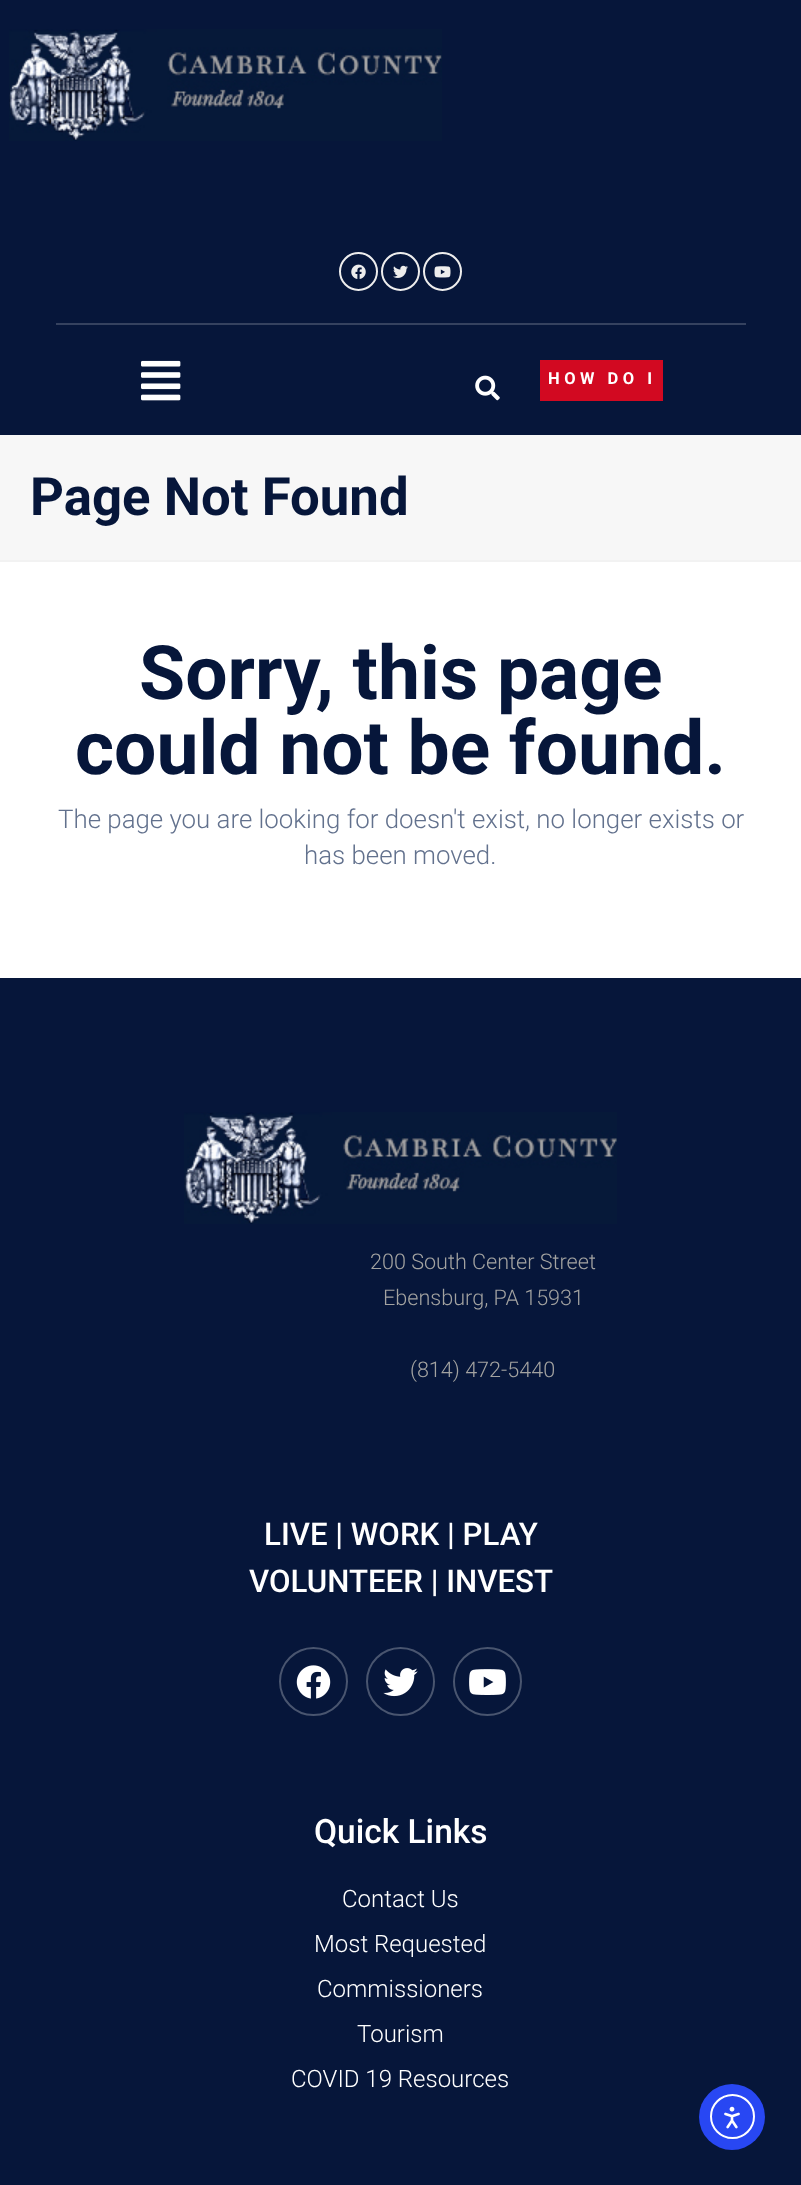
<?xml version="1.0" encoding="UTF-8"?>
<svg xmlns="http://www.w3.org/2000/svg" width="801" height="2185">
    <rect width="100%" height="100%" fill="#FFFFFF"/>
    <rect x="0" y="0" width="801" height="435" fill="#06163A"/>
    <image x="9" y="29" width="433" height="112" href="img_01.png"/>
    <circle cx="358.5" cy="271.5" r="18.5" fill="none" stroke="#EDEDED" stroke-width="2"/>
    <image x="351" y="264" width="15" height="15" href="img_02.png"/>
    <circle cx="400.5" cy="271.5" r="18.5" fill="none" stroke="#EDEDED" stroke-width="2"/>
    <image x="393" y="265" width="15" height="13" href="img_03.png"/>
    <circle cx="442.5" cy="271.5" r="18.5" fill="none" stroke="#EDEDED" stroke-width="2"/>
    <image x="434" y="266" width="17" height="12" href="img_04.png"/>
    <rect x="56" y="323" width="690" height="2" fill="#35425F"/>
    <image x="141" y="360" width="40" height="41" href="img_05.png"/>
    <image x="475" y="375" width="25" height="26" href="img_06.png"/>
    <rect x="540" y="360" width="123" height="41" fill="#D20921"/>
    <text x="548" y="384" font-family="Roboto" font-size="16.5" font-weight="700" letter-spacing="4.5" fill="#FFFFFF">HOW DO I</text>
    <rect x="0" y="435" width="801" height="125" fill="#F7F7F7"/>
    <rect x="0" y="560" width="801" height="2" fill="#F2F2F2"/>
    <text x="30" y="515" font-family="Roboto" font-size="52.75" font-weight="700" fill="#06163A">Page Not Found</text>
    <text x="139" y="699" font-family="Roboto" font-size="75" font-weight="700" fill="#06163A">Sorry, this page</text>
    <text x="75" y="774" font-family="Roboto" font-size="75" font-weight="700" fill="#06163A">could not be found.</text>
    <text x="58" y="828" font-family="Roboto" font-size="25.85" font-weight="300" fill="#62718D">The page you are looking for doesn't exist, no longer exists or</text>
    <text x="304" y="864" font-family="Roboto" font-size="25.85" font-weight="300" fill="#62718D">has been moved.</text>
    <rect x="0" y="978" width="801" height="1207" fill="#06163A"/>
    <image x="184" y="1112" width="433" height="112" href="img_07.png"/>
    <text x="370" y="1269" font-family="Roboto" font-size="21.6" font-weight="300" fill="#A3A3A1">200 South Center Street</text>
    <text x="383" y="1305" font-family="Roboto" font-size="21.6" font-weight="300" fill="#A3A3A1">Ebensburg, PA 15931</text>
    <text x="410" y="1377" font-family="Roboto" font-size="21.6" font-weight="300" fill="#A3A3A1">(814) 472-5440</text>
    <text x="264" y="1545" font-family="Roboto" font-size="31.25" font-weight="500" fill="#FFFFFF">LIVE | WORK | PLAY</text>
    <text x="249" y="1592" font-family="Roboto" font-size="31.25" font-weight="500" fill="#FFFFFF">VOLUNTEER | INVEST</text>
    <circle cx="313.5" cy="1681.5" r="33.5" fill="none" stroke="#49556F" stroke-width="2"/>
    <image x="296" y="1665" width="35" height="34" href="img_08.png"/>
    <circle cx="400.5" cy="1681.5" r="33.5" fill="none" stroke="#49556F" stroke-width="2"/>
    <image x="383" y="1668" width="35" height="29" href="img_09.png"/>
    <circle cx="487.5" cy="1681.5" r="33.5" fill="none" stroke="#49556F" stroke-width="2"/>
    <image x="469" y="1669" width="37" height="26" href="img_10.png"/>
    <text x="314" y="1843" font-family="Roboto" font-size="33.5" font-weight="500" fill="#FFFFFF">Quick Links</text>
    <text x="342" y="1907" font-family="Roboto" font-size="24" font-weight="300" fill="#FFFFFF">Contact Us</text>
    <text x="314" y="1952" font-family="Roboto" font-size="24" font-weight="300" fill="#FFFFFF">Most Requested</text>
    <text x="317" y="1997" font-family="Roboto" font-size="24" font-weight="300" fill="#FFFFFF">Commissioners</text>
    <text x="357" y="2042" font-family="Roboto" font-size="24" font-weight="300" fill="#FFFFFF">Tourism</text>
    <text x="291" y="2087" font-family="Roboto" font-size="24" font-weight="300" fill="#FFFFFF">COVID 19 Resources</text>
    <circle cx="732" cy="2117" r="33" fill="#2847F3"/>
    <circle cx="732.5" cy="2116.5" r="21.5" fill="none" stroke="#FFFFFF" stroke-width="2"/>
    <image x="724" y="2106" width="16" height="23" href="img_11.png"/>
</svg>
